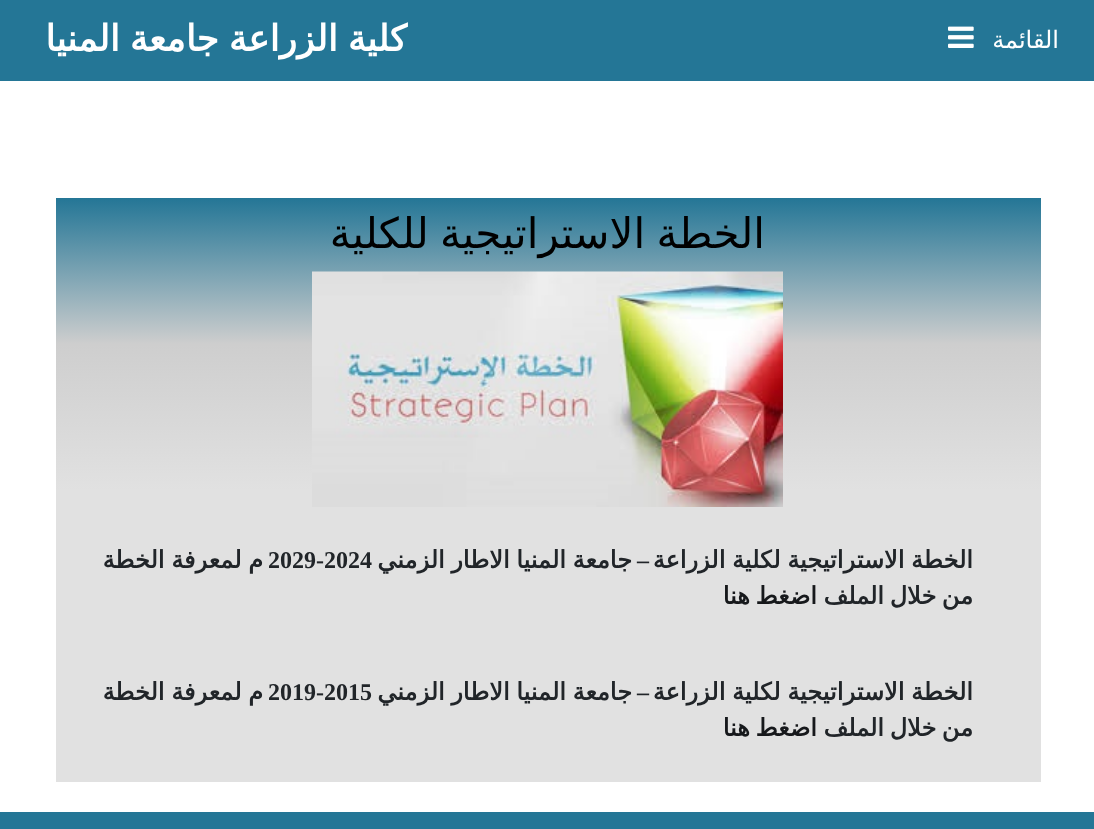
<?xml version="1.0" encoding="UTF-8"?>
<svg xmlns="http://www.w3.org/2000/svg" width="1094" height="829">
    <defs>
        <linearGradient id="g1" gradientUnits="userSpaceOnUse" x1="548" y1="198" x2="548" y2="782"><stop offset="0" stop-color="#247696"/><stop offset="0.25" stop-color="#CECECE"/><stop offset="0.5" stop-color="#E1E1E1"/><stop offset="1" stop-color="#E1E1E1"/></linearGradient>
    </defs>
    <rect width="100%" height="100%" fill="#FFFFFF"/>
    <rect x="0" y="0" width="1094" height="81" fill="#247696"/>
    <text x="1059" y="48" font-family="DejaVu Sans" font-size="24" direction="rtl" fill="#FFFFFF">القائمة</text>
    <image x="948" y="26" width="26" height="22" href="img_01.png"/>
    <text x="407" y="51" word-spacing="-1.5" font-family="DejaVu Sans" font-size="36" font-weight="700" direction="rtl" fill="#FFFFFF">كلية الزراعة جامعة المنيا</text>
    <rect x="56" y="198" width="985" height="584" fill="url(#g1)"/>
    <text x="765" y="248" word-spacing="-2" font-family="DejaVu Sans" font-size="42" direction="rtl" fill="#000000">الخطة الاستراتيجية للكلية</text>
    <image x="312" y="271" width="471" height="236" href="img_02.png"/>
    <text x="973" y="568" word-spacing="-1" font-family="DejaVu Sans" font-size="24" font-weight="700" direction="rtl" fill="#212529">الخطة الاستراتيجية لكلية الزراعة</text>
    <text x="649" y="568" font-family="Liberation Serif" font-size="24" font-weight="700" direction="rtl" fill="#212529">–</text>
    <text x="632" y="568" word-spacing="-1" font-family="DejaVu Sans" font-size="24" font-weight="700" direction="rtl" fill="#212529">جامعة المنيا الاطار الزمني</text>
    <text x="268" y="568" font-family="Liberation Serif" font-size="24" font-weight="700" fill="#212529">2029-2024</text>
    <text x="263" y="568" word-spacing="-1" font-family="DejaVu Sans" font-size="24" font-weight="700" direction="rtl" fill="#212529">م لمعرفة الخطة</text>
    <text x="973" y="604" word-spacing="-2" font-family="DejaVu Sans" font-size="24" font-weight="700" direction="rtl" fill="#212529">من خلال الملف</text>
    <text x="817" y="604" word-spacing="-2" font-family="DejaVu Sans" font-size="24" font-weight="700" direction="rtl" fill="#16181B">اضغط هنا</text>
    <text x="973" y="700" word-spacing="-1" font-family="DejaVu Sans" font-size="24" font-weight="700" direction="rtl" fill="#212529">الخطة الاستراتيجية لكلية الزراعة</text>
    <text x="649" y="700" font-family="Liberation Serif" font-size="24" font-weight="700" direction="rtl" fill="#212529">–</text>
    <text x="632" y="700" word-spacing="-1" font-family="DejaVu Sans" font-size="24" font-weight="700" direction="rtl" fill="#212529">جامعة المنيا الاطار الزمني</text>
    <text x="268" y="700" font-family="Liberation Serif" font-size="24" font-weight="700" fill="#212529">2019-2015</text>
    <text x="263" y="700" word-spacing="-1" font-family="DejaVu Sans" font-size="24" font-weight="700" direction="rtl" fill="#212529">م لمعرفة الخطة</text>
    <text x="973" y="736" word-spacing="-2" font-family="DejaVu Sans" font-size="24" font-weight="700" direction="rtl" fill="#212529">من خلال الملف</text>
    <text x="817" y="736" word-spacing="-2" font-family="DejaVu Sans" font-size="24" font-weight="700" direction="rtl" fill="#16181B">اضغط هنا</text>
    <rect x="0" y="812" width="1094" height="17" fill="#247696"/>
</svg>
